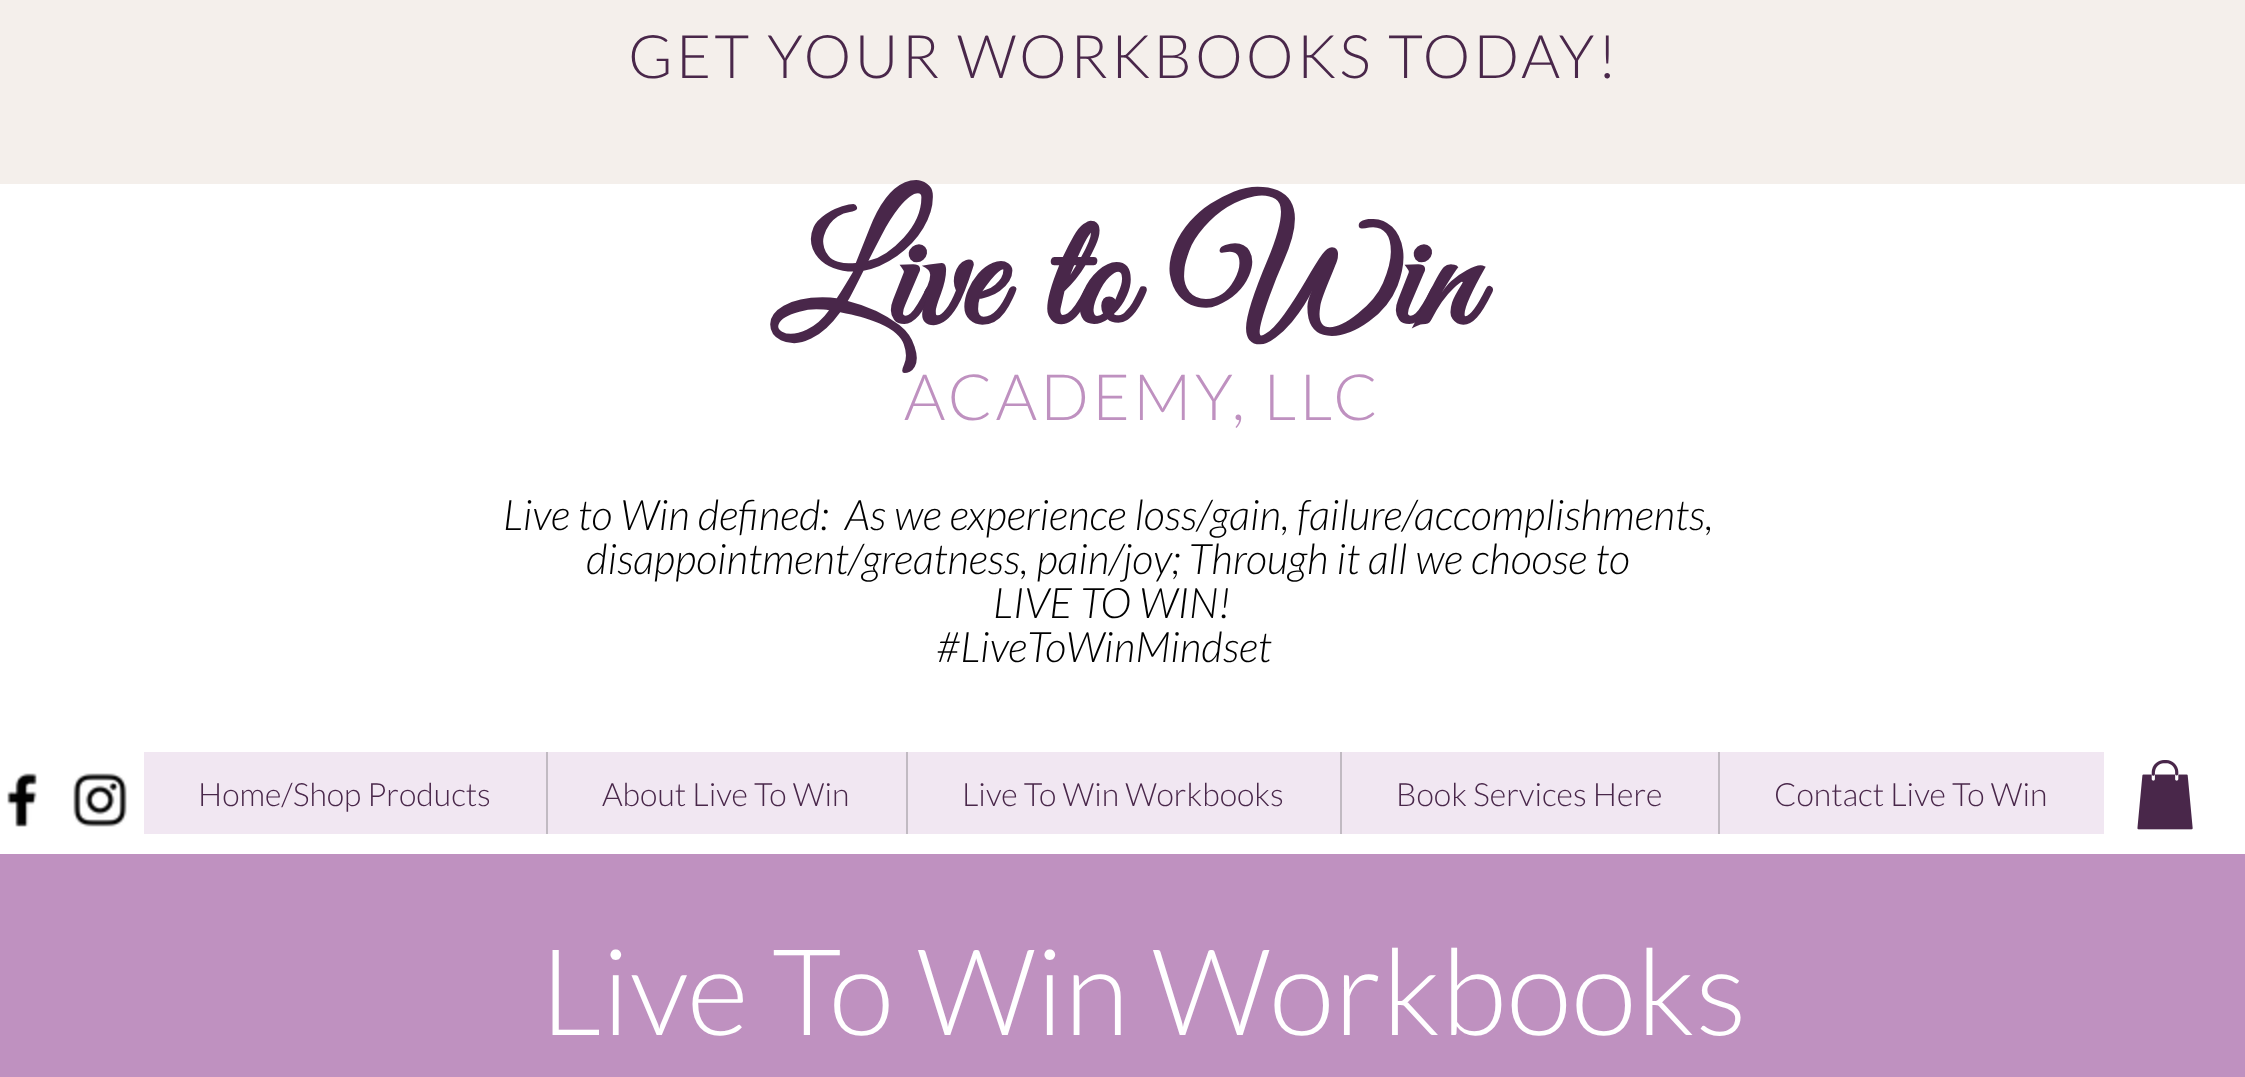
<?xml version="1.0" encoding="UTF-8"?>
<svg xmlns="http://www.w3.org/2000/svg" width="2245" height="1077">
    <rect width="100%" height="100%" fill="#FFFFFF"/>
    <rect x="0" y="0" width="2245" height="184" fill="#F4EFEB"/>
    <text x="628" y="78" font-family="Lato" font-size="60" font-weight="300" letter-spacing="3" fill="#49274A">GET YOUR WORKBOOKS TODAY!</text>
    <text x="771" y="324" font-family="Great Vibes" font-size="164" font-weight="700" fill="#49274A">Live to Win</text>
    <text x="904" y="420" font-family="Lato" font-size="64" font-weight="300" letter-spacing="3.25" fill="#BF91C0">ACADEMY, LLC</text>
    <text x="503" y="530" font-family="Lato" font-size="42" font-weight="300" font-style="italic" fill="#000000" xml:space="preserve">Live to Win defined:  As we experience loss/gain, failure/accomplishments,</text>
    <text x="586" y="574" font-family="Lato" font-size="42" font-weight="300" font-style="italic" fill="#000000">disappointment/greatness, pain/joy; Through it all we choose to</text>
    <text x="993" y="618" font-family="Lato" font-size="42" font-weight="300" font-style="italic" fill="#000000">LIVE TO WIN!</text>
    <text x="936" y="662" font-family="Lato" font-size="42" font-weight="300" font-style="italic" fill="#000000">#LiveToWinMindset</text>
    <image x="7" y="773" width="30" height="54" href="img_01.png"/>
    <image x="73" y="773" width="54" height="54" href="img_02.png"/>
    <rect x="144" y="752" width="1960" height="82" fill="#F1E7F2"/>
    <text x="198" y="806" font-family="Lato" font-size="32" font-weight="300" fill="#49274A">Home/Shop Products</text>
    <rect x="546" y="752" width="2" height="82" fill="#C1BAC2"/>
    <text x="602" y="806" font-family="Lato" font-size="32" font-weight="300" fill="#49274A">About Live To Win</text>
    <rect x="906" y="752" width="2" height="82" fill="#C1BAC2"/>
    <text x="962" y="806" font-family="Lato" font-size="32" font-weight="300" fill="#49274A">Live To Win Workbooks</text>
    <rect x="1340" y="752" width="2" height="82" fill="#C1BAC2"/>
    <text x="1396" y="806" font-family="Lato" font-size="32" font-weight="300" fill="#49274A">Book Services Here</text>
    <rect x="1718" y="752" width="2" height="82" fill="#C1BAC2"/>
    <text x="1774" y="806" font-family="Lato" font-size="32" font-weight="300" fill="#49274A">Contact Live To Win</text>
    <image x="2137" y="760" width="56" height="70" href="img_03.png"/>
    <rect x="0" y="854" width="2245" height="223" fill="#BF91C0"/>
    <text x="540" y="1035" font-family="Lato" font-size="120" font-weight="300" fill="#FFFFFF">Live To Win Workbooks</text>
</svg>
